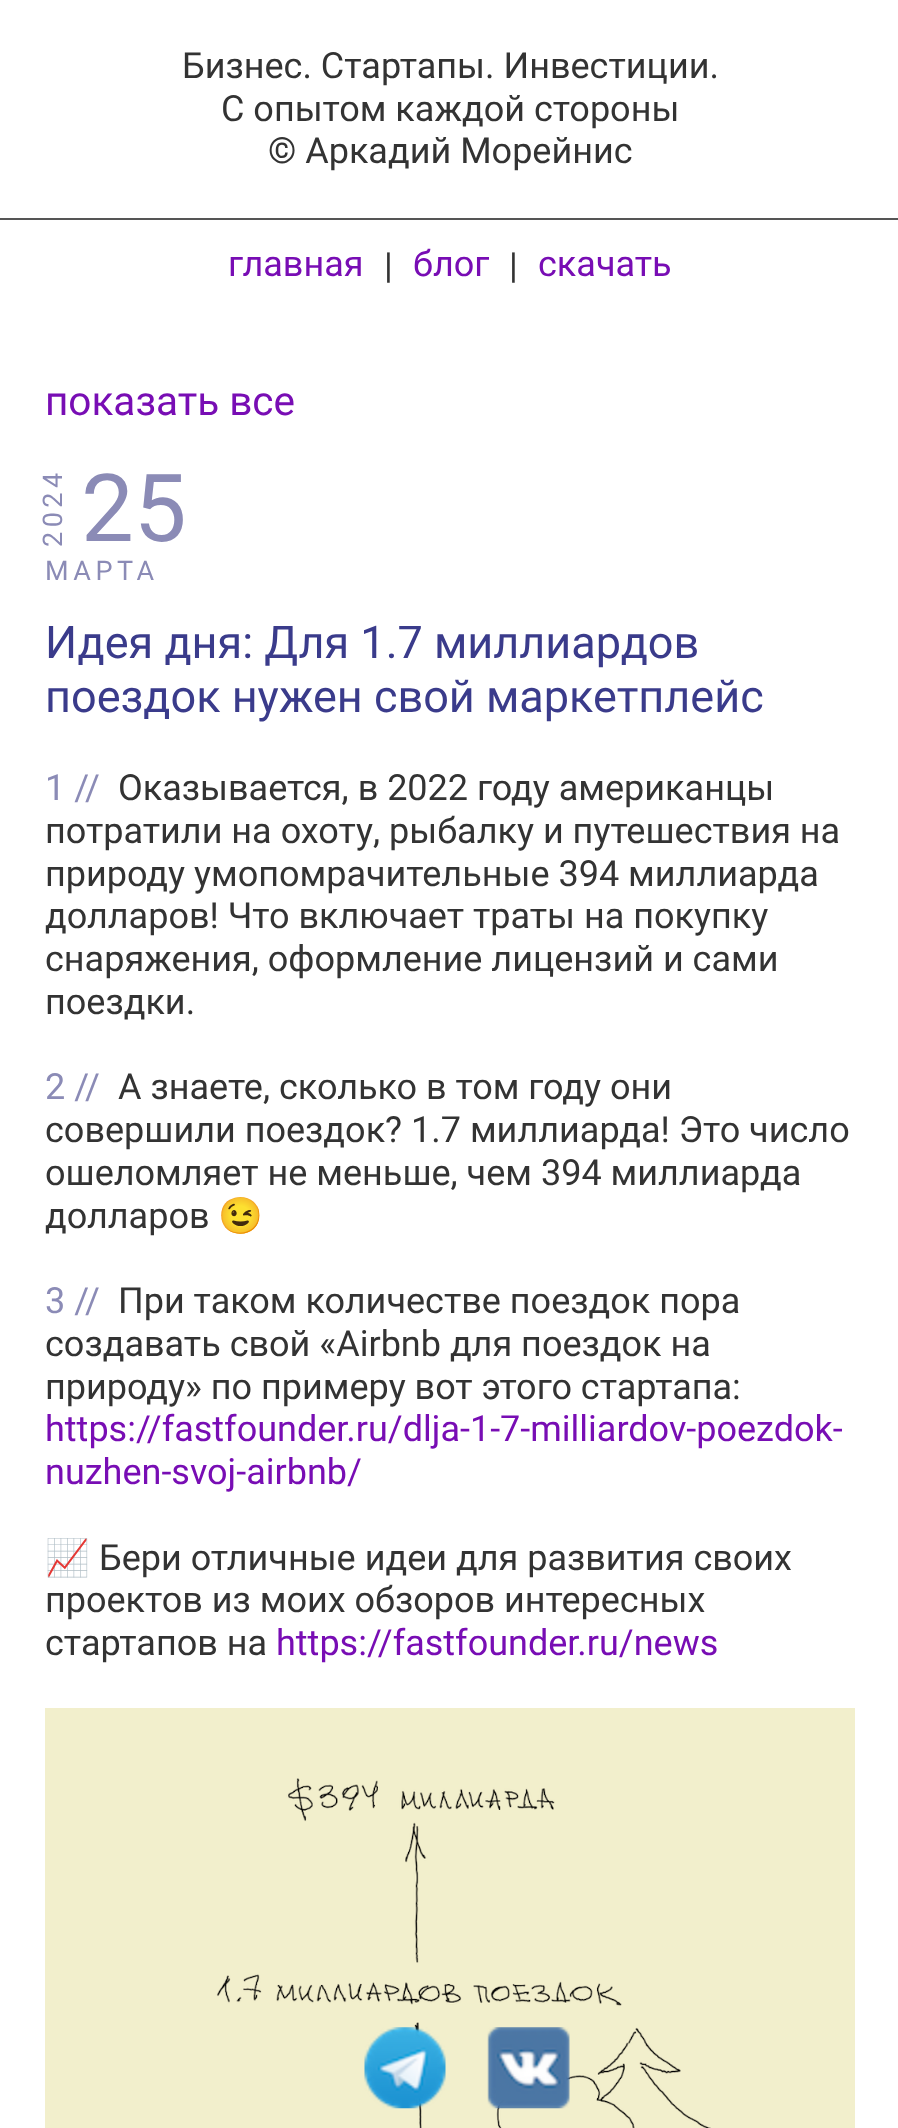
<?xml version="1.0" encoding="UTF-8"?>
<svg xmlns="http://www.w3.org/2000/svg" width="898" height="2128">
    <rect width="100%" height="100%" fill="#FFFFFF"/>
    <text x="182" y="78" font-family="Roboto" font-size="36" fill="#333333">Бизнес. Стартапы. Инвестиции.</text>
    <text x="221" y="121" font-family="Roboto" font-size="36" fill="#333333">С опытом каждой стороны</text>
    <text x="268" y="163" font-family="Roboto" font-size="36" fill="#333333">© Аркадий Морейнис</text>
    <rect x="0" y="218" width="898" height="2" fill="#555555"/>
    <text x="228" y="276" font-family="Roboto" font-size="36" fill="#780DB4">главная</text>
    <text x="384" y="278" font-family="Roboto" font-size="36" fill="#333333">|</text>
    <text x="413" y="276" font-family="Roboto" font-size="36" fill="#780DB4">блог</text>
    <text x="509" y="278" font-family="Roboto" font-size="36" fill="#333333">|</text>
    <text x="538" y="276" font-family="Roboto" font-size="36" fill="#780DB4">скачать</text>
    <text x="45" y="415" font-family="Roboto" font-size="40.5" fill="#780DB4">показать все</text>
    <text x="62" y="547" transform="rotate(-90 62 547)" font-family="Roboto" font-size="27" letter-spacing="4.5" fill="#8B8BB6">2024</text>
    <text x="81" y="541" font-family="Roboto" font-size="94" fill="#8B8BB6">25</text>
    <text x="45" y="580" font-family="Roboto" font-size="27" letter-spacing="4.5" fill="#8B8BB6">МАРТА</text>
    <text font-family="Roboto" font-size="45" fill="#3A3B8B">
        <tspan x="45" y="658">Идея дня: Для 1.7 миллиардов</tspan>
        <tspan x="45" y="712">поездок нужен свой маркетплейс</tspan>
    </text>
    <text x="45" y="800" font-family="Roboto" font-size="36" fill="#8B8BB6">1 //</text>
    <text x="118" y="800" font-family="Roboto" font-size="36" fill="#333333">Оказывается, в 2022 году американцы</text>
    <text font-family="Roboto" font-size="36" fill="#333333">
        <tspan x="45" y="843">потратили на охоту, рыбалку и путешествия на</tspan>
        <tspan x="45" y="886">природу умопомрачительные 394 миллиарда</tspan>
        <tspan x="45" y="928">долларов! Что включает траты на покупку</tspan>
        <tspan x="45" y="971">снаряжения, оформление лицензий и сами</tspan>
        <tspan x="45" y="1014">поездки.</tspan>
    </text>
    <text x="45" y="1099" font-family="Roboto" font-size="36" fill="#8B8BB6">2 //</text>
    <text x="118" y="1099" font-family="Roboto" font-size="36" fill="#333333">А знаете, сколько в том году они</text>
    <text font-family="Roboto" font-size="36" fill="#333333">
        <tspan x="45" y="1142">совершили поездок? 1.7 миллиарда! Это число</tspan>
        <tspan x="45" y="1185">ошеломляет не меньше, чем 394 миллиарда</tspan>
        <tspan x="45" y="1228">долларов</tspan>
    </text>
    <text x="218" y="1228" font-family="Noto Color Emoji" font-size="36" fill="#333333">😉</text>
    <text x="45" y="1313" font-family="Roboto" font-size="36" fill="#8B8BB6">3 //</text>
    <text x="118" y="1313" font-family="Roboto" font-size="36" fill="#333333">При таком количестве поездок пора</text>
    <text font-family="Roboto" font-size="36" fill="#333333">
        <tspan x="45" y="1356">создавать свой «Airbnb для поездок на</tspan>
        <tspan x="45" y="1399">природу» по примеру вот этого стартапа:</tspan>
    </text>
    <text font-family="Roboto" font-size="36" fill="#780DB4">
        <tspan x="45" y="1441">https://fastfounder.ru/dlja-1-7-milliardov-poezdok-</tspan>
        <tspan x="45" y="1484">nuzhen-svoj-airbnb/</tspan>
    </text>
    <text x="45" y="1570" font-family="Noto Color Emoji" font-size="36" fill="#333333">📈</text>
    <text x="99" y="1570" font-family="Roboto" font-size="36" fill="#333333">Бери отличные идеи для развития своих</text>
    <text font-family="Roboto" font-size="36" fill="#333333">
        <tspan x="45" y="1612">проектов из моих обзоров интересных</tspan>
        <tspan x="45" y="1655">стартапов на</tspan>
    </text>
    <text x="276" y="1655" font-family="Roboto" font-size="36" fill="#780DB4">https://fastfounder.ru/news</text>
    <image x="45" y="1708" width="810" height="420" href="img_01.png"/>
    <image x="364" y="2027" width="82" height="82" href="img_02.png"/>
    <image x="487" y="2027" width="83" height="82" href="img_03.png"/>
</svg>
